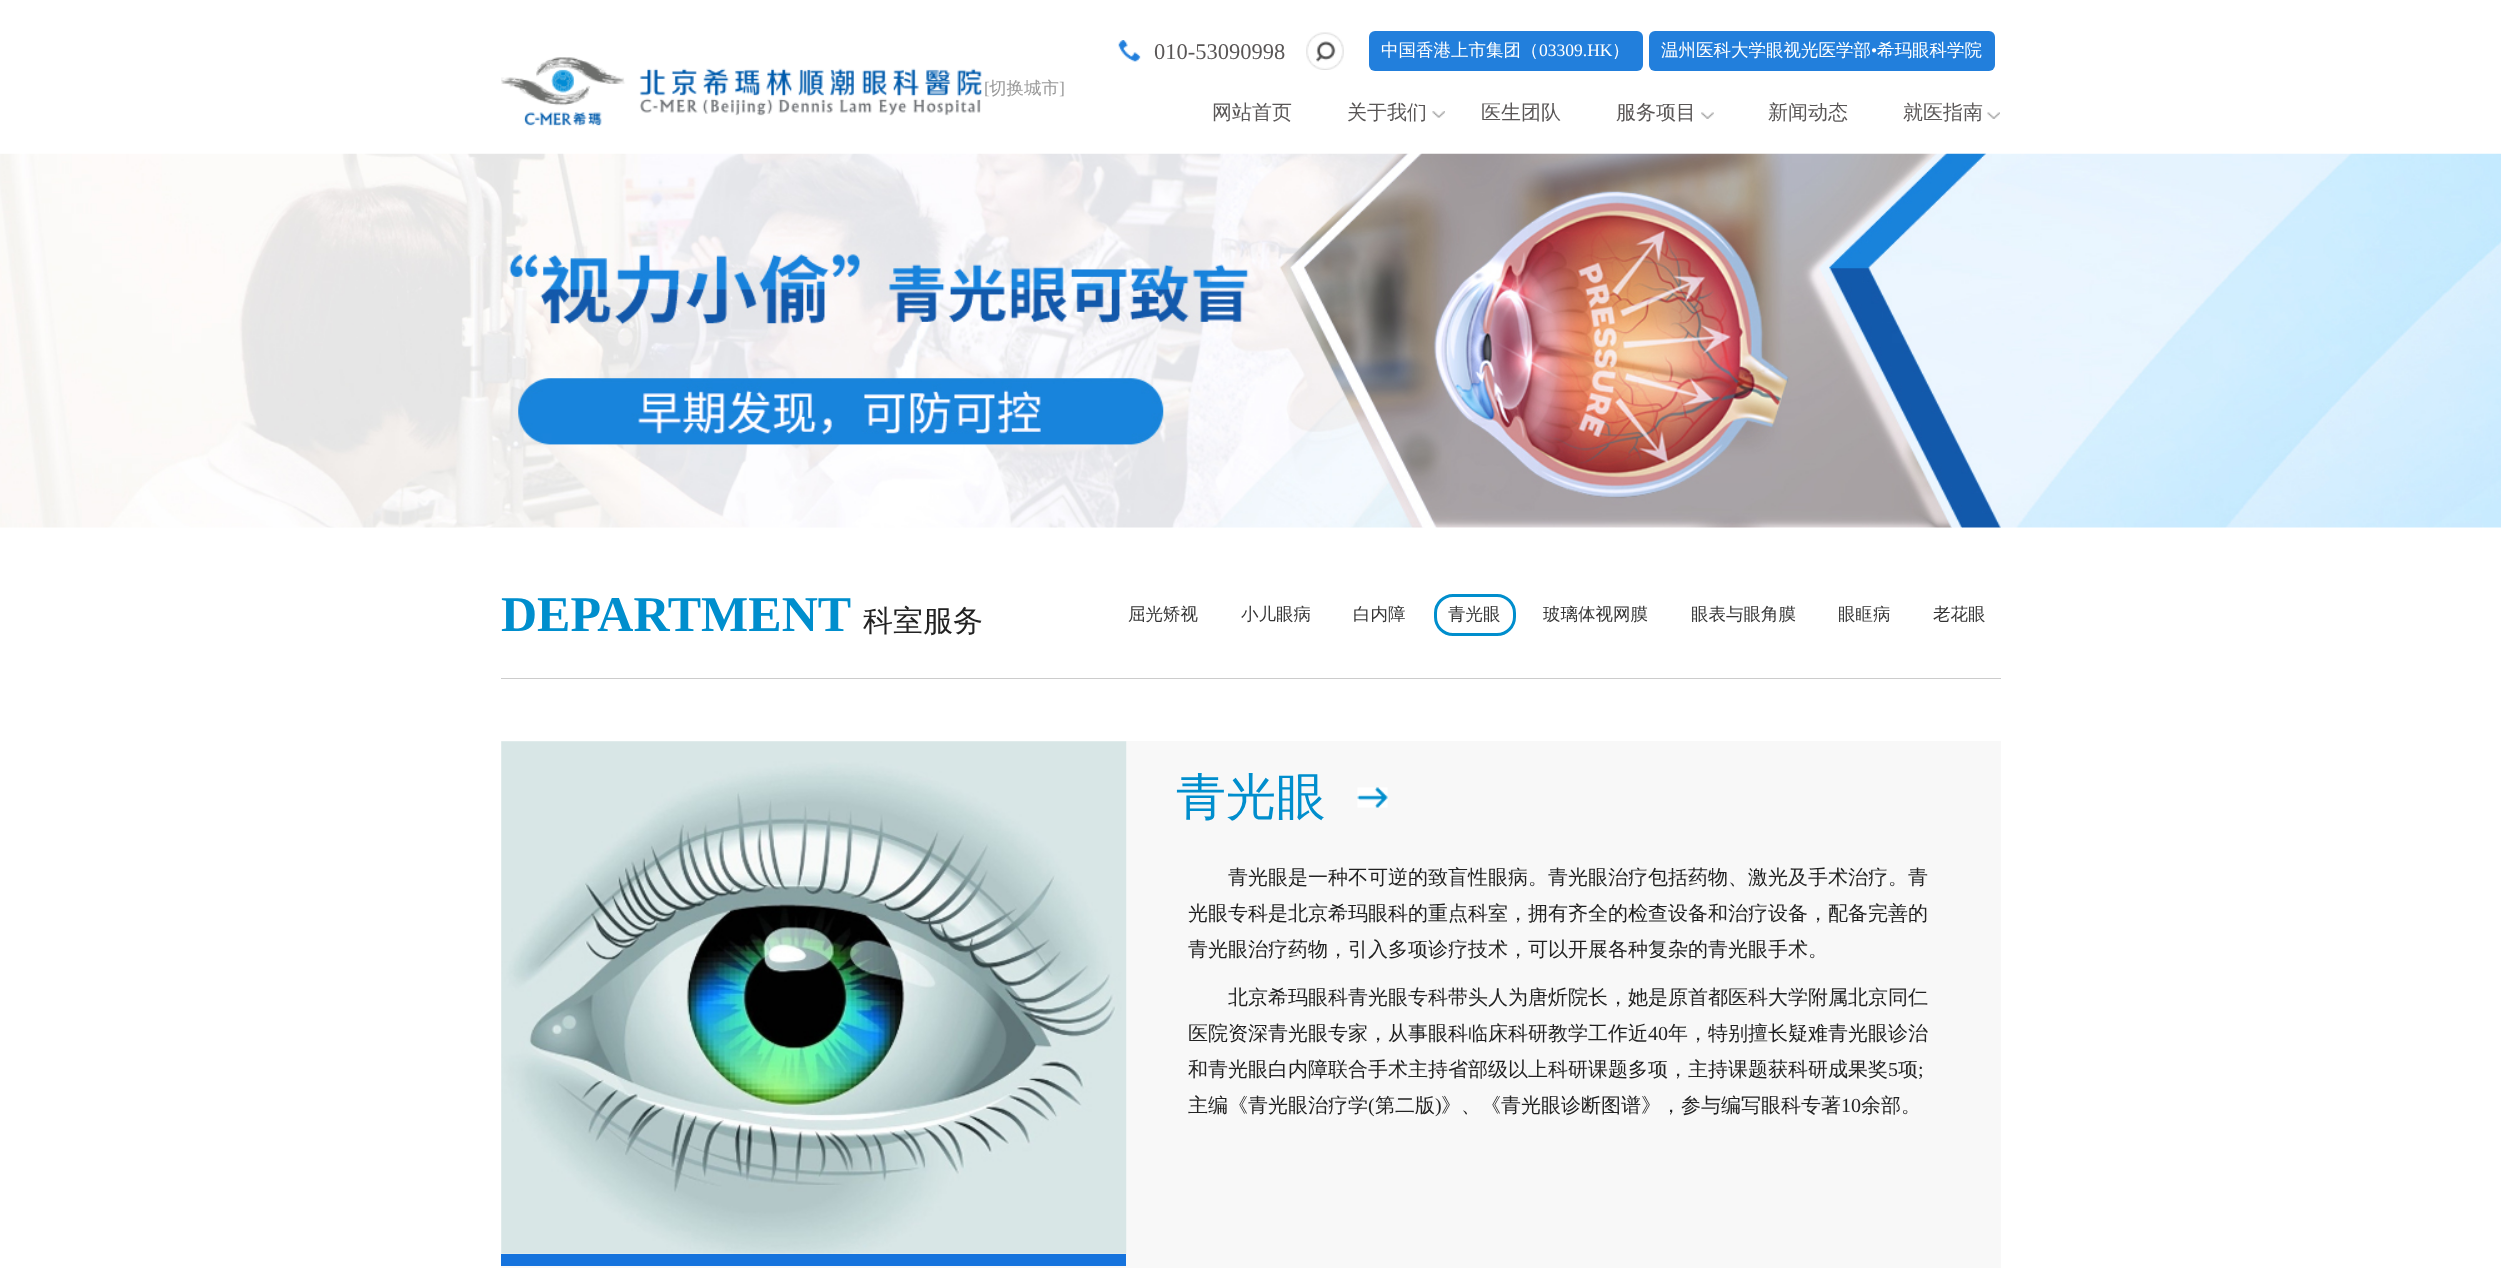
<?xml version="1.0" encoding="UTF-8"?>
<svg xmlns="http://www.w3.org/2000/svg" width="2501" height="1268">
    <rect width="100%" height="100%" fill="#FFFFFF"/>
    <image x="501" y="57" width="481" height="69" href="img_01.png"/>
    <text x="984" y="94" font-family="Liberation Serif" font-size="17.5" fill="#999999">[</text>
    <text x="989" y="94" font-family="WenQuanYi Zen Hei" font-size="17.5" font-weight="500" fill="#999999">切换城市</text>
    <text x="1059" y="94" font-family="Liberation Serif" font-size="17.5" fill="#999999">]</text>
    <image x="1118" y="40" width="23" height="22" href="img_02.png"/>
    <text x="1154" y="59" font-family="Liberation Serif" font-size="22.5" fill="#595656">010-53090998</text>
    <image x="1306" y="32" width="38" height="38" href="img_03.png"/>
    <rect x="1369" y="31" width="274" height="40" rx="6" fill="#227FDC"/>
    <text x="1381" y="56" font-family="WenQuanYi Zen Hei" font-size="17.5" font-weight="500" fill="#FFFFFF">中国香港上市集团（</text>
    <text x="1539" y="56" font-family="Liberation Serif" font-size="17.5" fill="#FFFFFF">03309.HK</text>
    <text x="1612" y="56" font-family="WenQuanYi Zen Hei" font-size="17.5" font-weight="500" fill="#FFFFFF">）</text>
    <rect x="1649" y="31" width="346" height="40" rx="6" fill="#227FDC"/>
    <text x="1661" y="56" font-family="WenQuanYi Zen Hei" font-size="17.5" font-weight="500" fill="#FFFFFF">温州医科大学眼视光医学部</text>
    <text x="1871" y="56" font-family="Liberation Serif" font-size="17.5" fill="#FFFFFF">•</text>
    <text x="1877" y="56" font-family="WenQuanYi Zen Hei" font-size="17.5" font-weight="500" fill="#FFFFFF">希玛眼科学院</text>
    <text x="1212" y="119" font-family="WenQuanYi Zen Hei" font-size="20" font-weight="500" fill="#595656">网站首页</text>
    <text x="1347" y="119" font-family="WenQuanYi Zen Hei" font-size="20" font-weight="500" fill="#595656">关于我们</text>
    <image x="1432" y="111" width="13" height="7" href="img_04.png"/>
    <text x="1481" y="119" font-family="WenQuanYi Zen Hei" font-size="20" font-weight="500" fill="#595656">医生团队</text>
    <text x="1616" y="119" font-family="WenQuanYi Zen Hei" font-size="20" font-weight="500" fill="#595656">服务项目</text>
    <image x="1701" y="112" width="13" height="7" href="img_05.png"/>
    <text x="1768" y="119" font-family="WenQuanYi Zen Hei" font-size="20" font-weight="500" fill="#595656">新闻动态</text>
    <text x="1903" y="119" font-family="WenQuanYi Zen Hei" font-size="20" font-weight="500" fill="#595656">就医指南</text>
    <image x="1987" y="112" width="13" height="7" href="img_06.png"/>
    <image x="0" y="153" width="2501" height="375" href="img_07.png"/>
    <rect x="501" y="678" width="1500" height="1" fill="#CCCCCC"/>
    <text x="501" y="631" font-family="Liberation Serif" font-size="50" font-weight="700" fill="#008ECD">DEPARTMENT</text>
    <text x="863" y="631" font-family="WenQuanYi Zen Hei" font-size="30" font-weight="500" fill="#222222">科室服务</text>
    <text x="1128" y="620" font-family="WenQuanYi Zen Hei" font-size="17.5" font-weight="500" fill="#333333">屈光矫视</text>
    <text x="1241" y="620" font-family="WenQuanYi Zen Hei" font-size="17.5" font-weight="500" fill="#333333">小儿眼病</text>
    <text x="1353" y="620" font-family="WenQuanYi Zen Hei" font-size="17.5" font-weight="500" fill="#333333">白内障</text>
    <rect x="1435.5" y="595.5" width="79" height="39" rx="17.5" fill="none" stroke="#008ECD" stroke-width="3"/>
    <text x="1448" y="620" font-family="WenQuanYi Zen Hei" font-size="17.5" font-weight="500" fill="#333333">青光眼</text>
    <text x="1543" y="620" font-family="WenQuanYi Zen Hei" font-size="17.5" font-weight="500" fill="#333333">玻璃体视网膜</text>
    <text x="1691" y="620" font-family="WenQuanYi Zen Hei" font-size="17.5" font-weight="500" fill="#333333">眼表与眼角膜</text>
    <text x="1838" y="620" font-family="WenQuanYi Zen Hei" font-size="17.5" font-weight="500" fill="#333333">眼眶病</text>
    <text x="1933" y="620" font-family="WenQuanYi Zen Hei" font-size="17.5" font-weight="500" fill="#333333">老花眼</text>
    <rect x="501" y="741" width="1500" height="527" fill="#F8F8F8"/>
    <rect x="501" y="1254" width="625" height="12" fill="#1573DD"/>
    <image x="501" y="741" width="626" height="513" href="img_08.png"/>
    <text x="1176" y="814" font-family="WenQuanYi Zen Hei" font-size="50" font-weight="500" fill="#008ECD">青光眼</text>
    <image x="1357" y="787" width="31" height="21" href="img_09.png"/>
    <text x="1228" y="884" font-family="WenQuanYi Zen Hei" font-size="20" font-weight="500" fill="#222222">青光眼是一种不可逆的致盲性眼病。青光眼治疗包括药物、激光及手术治疗。青</text>
    <text font-family="WenQuanYi Zen Hei" font-size="20" font-weight="500" fill="#222222">
        <tspan x="1188" y="920">光眼专科是北京希玛眼科的重点科室，拥有齐全的检查设备和治疗设备，配备完善的</tspan>
        <tspan x="1188" y="956">青光眼治疗药物，引入多项诊疗技术，可以开展各种复杂的青光眼手术。</tspan>
    </text>
    <text x="1228" y="1004" font-family="WenQuanYi Zen Hei" font-size="20" font-weight="500" fill="#222222">北京希玛眼科青光眼专科带头人为唐炘院长，她是原首都医科大学附属北京同仁</text>
    <text x="1188" y="1040" font-family="WenQuanYi Zen Hei" font-size="20" font-weight="500" fill="#222222">医院资深青光眼专家，从事眼科临床科研教学工作近</text>
    <text x="1648" y="1040" font-family="Liberation Serif" font-size="20" fill="#222222">40</text>
    <text x="1668" y="1040" font-family="WenQuanYi Zen Hei" font-size="20" font-weight="500" fill="#222222">年，特别擅长疑难青光眼诊治</text>
    <text x="1188" y="1076" font-family="WenQuanYi Zen Hei" font-size="20" font-weight="500" fill="#222222">和青光眼白内障联合手术主持省部级以上科研课题多项，主持课题获科研成果奖</text>
    <text x="1888" y="1076" font-family="Liberation Serif" font-size="20" fill="#222222">5</text>
    <text x="1898" y="1076" font-family="WenQuanYi Zen Hei" font-size="20" font-weight="500" fill="#222222">项</text>
    <text x="1918" y="1076" font-family="Liberation Serif" font-size="20" fill="#222222">;</text>
    <text x="1188" y="1112" font-family="WenQuanYi Zen Hei" font-size="20" font-weight="500" fill="#222222">主编《青光眼治疗学</text>
    <text x="1368" y="1112" font-family="Liberation Serif" font-size="20" fill="#222222">(</text>
    <text x="1375" y="1112" font-family="WenQuanYi Zen Hei" font-size="20" font-weight="500" fill="#222222">第二版</text>
    <text x="1435" y="1112" font-family="Liberation Serif" font-size="20" fill="#222222">)</text>
    <text x="1441" y="1112" font-family="WenQuanYi Zen Hei" font-size="20" font-weight="500" fill="#222222">》、《青光眼诊断图谱》，参与编写眼科专著</text>
    <text x="1841" y="1112" font-family="Liberation Serif" font-size="20" fill="#222222">10</text>
    <text x="1861" y="1112" font-family="WenQuanYi Zen Hei" font-size="20" font-weight="500" fill="#222222">余部。</text>
</svg>
